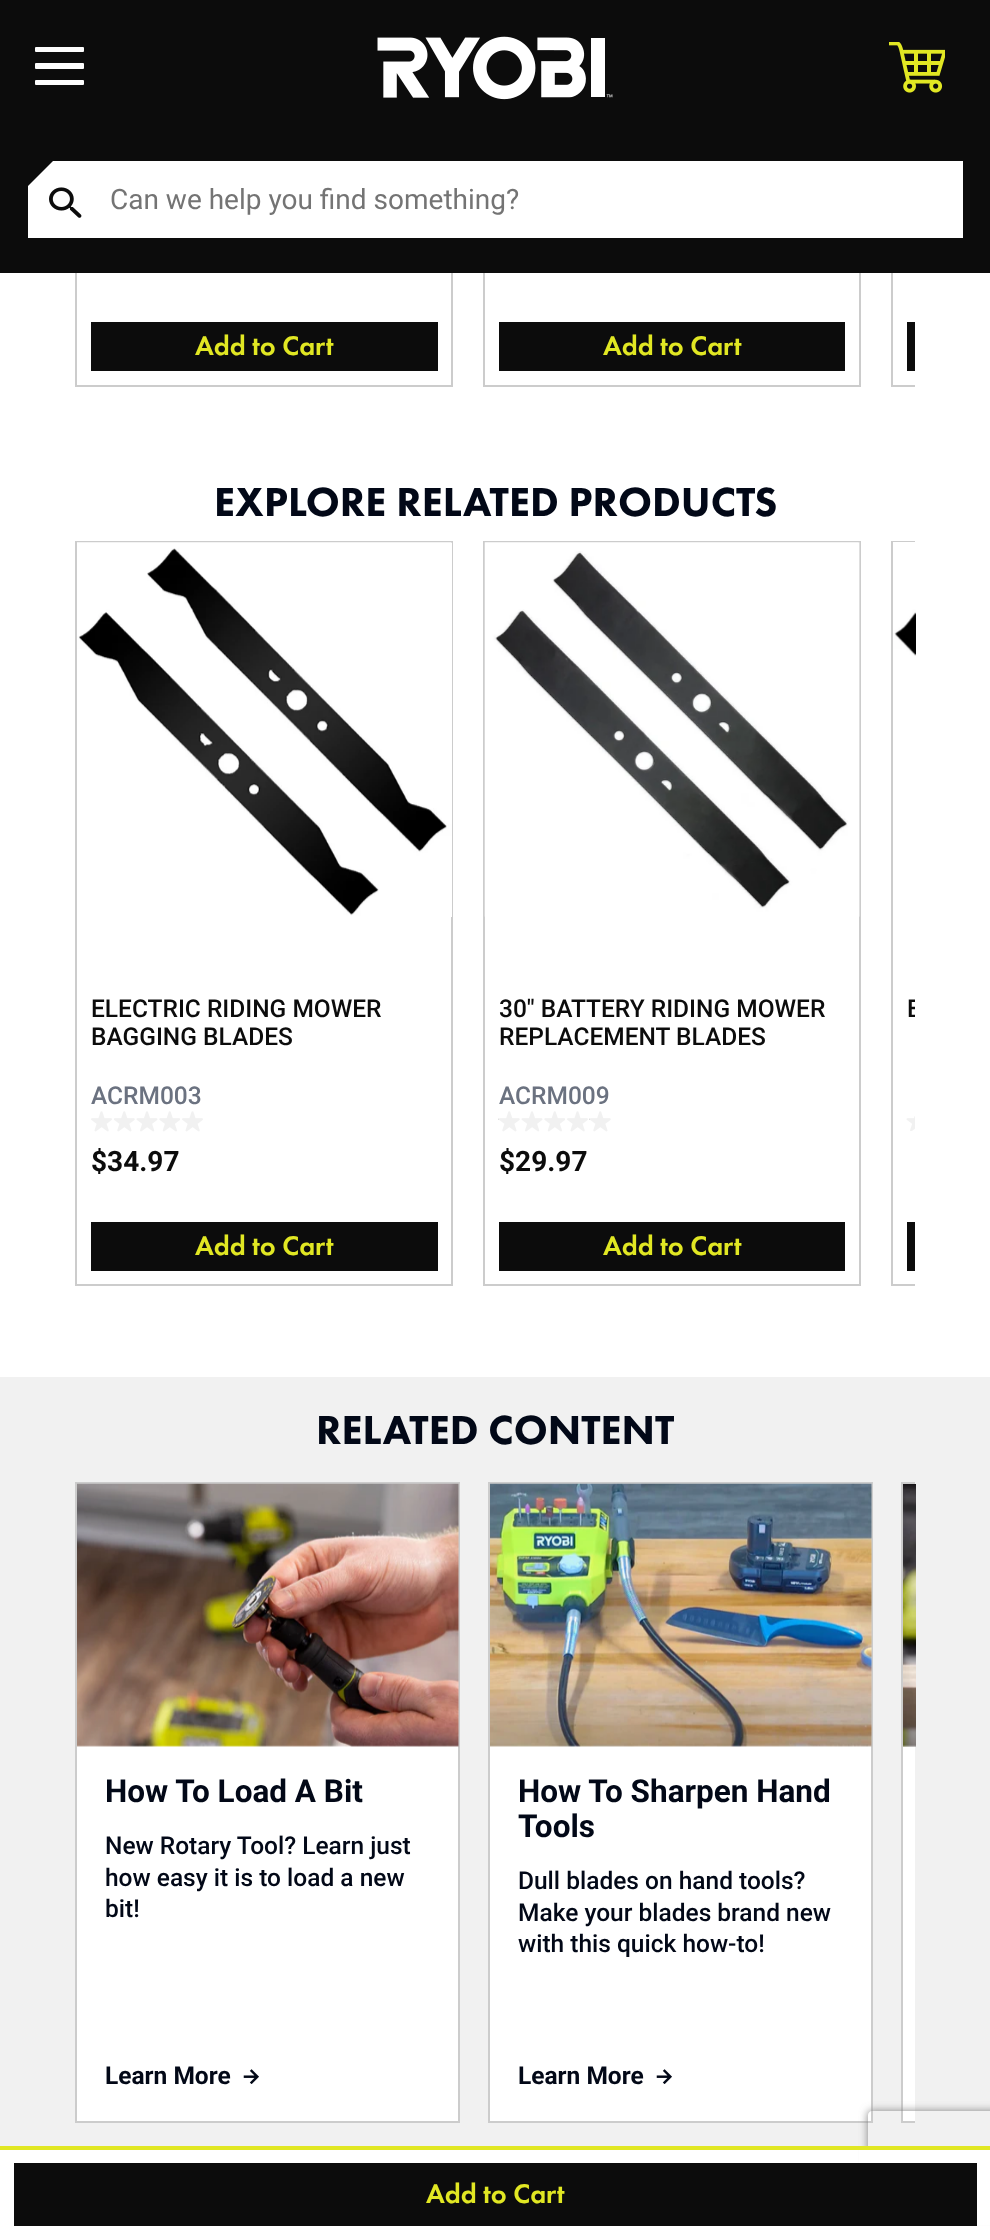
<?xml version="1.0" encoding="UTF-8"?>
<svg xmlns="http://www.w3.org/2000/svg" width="990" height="2240">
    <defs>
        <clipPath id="clip1"><rect x="75" y="0" width="840" height="394"/></clipPath>
        <clipPath id="clip2"><rect x="28" y="161" width="935" height="77"/></clipPath>
        <clipPath id="clip3"><rect x="75" y="541" width="840" height="752"/></clipPath>
        <clipPath id="clip4"><rect x="907" y="994" width="8" height="56"/></clipPath>
        <clipPath id="clip5"><rect x="75" y="1482" width="840" height="641"/></clipPath>
        <clipPath id="clip6"><path d="M 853 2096 H 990 V 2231 H 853 Z M 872 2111 H 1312 C 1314 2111 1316 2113 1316 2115 V 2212 C 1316 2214 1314 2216 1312 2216 H 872 C 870 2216 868 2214 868 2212 V 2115 C 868 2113 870 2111 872 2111 Z" clip-rule="evenodd"/></clipPath>
        <filter id="blur1" x="-50%" y="-200%" width="200%" height="500%"><feGaussianBlur stdDeviation="4.5"/></filter>
    </defs>
    <rect width="100%" height="100%" fill="#FFFFFF"/>
    <rect x="76" y="-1" width="376" height="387" fill="none" stroke="#CCCCCC" stroke-width="2"/>
    <rect x="484" y="-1" width="376" height="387" fill="none" stroke="#CCCCCC" stroke-width="2"/>
    <g clip-path="url(#clip1)">
        <rect x="892" y="-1" width="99" height="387" fill="none" stroke="#CCCCCC" stroke-width="2"/>
    </g>
    <rect x="0" y="0" width="990" height="273" fill="#0C0C0C"/>
    <rect x="35" y="47" width="49" height="5" rx="1" fill="#FDFDFD"/>
    <rect x="35" y="63" width="49" height="6" rx="1" fill="#FDFDFD"/>
    <rect x="35" y="80" width="49" height="5" rx="1" fill="#FDFDFD"/>
    <image x="377" y="36" width="236" height="64" href="img_01.png"/>
    <image x="889" y="42" width="56" height="51" href="img_02.png"/>
    <rect x="28" y="161" width="935" height="77" fill="#FFFFFF"/>
    <g clip-path="url(#clip2)">
        <path d="M 28 136 L 53 161 L 28 186 L 3 161 Z" fill="#0C0C0C"/>
    </g>
    <image x="49" y="187" width="33" height="31" href="img_03.png"/>
    <text x="110" y="209" font-family="Roboto" font-size="28" fill="#747474">Can we help you find something?</text>
    <rect x="91" y="322" width="347" height="49" fill="#0C0C0C"/>
    <text x="195" y="355" font-family="Futura PT" font-size="28" font-weight="500" fill="#E1E723">Add to Cart</text>
    <rect x="499" y="322" width="346" height="49" fill="#0C0C0C"/>
    <text x="603" y="355" font-family="Futura PT" font-size="28" font-weight="500" fill="#E1E723">Add to Cart</text>
    <rect x="907" y="322" width="8" height="49" fill="#0C0C0C"/>
    <text x="214" y="516" font-family="Futura PT" font-size="42" font-weight="900" fill="#020817">EXPLORE RELATED PRODUCTS</text>
    <rect x="76" y="542" width="376" height="743" fill="none" stroke="#CCCCCC" stroke-width="2"/>
    <rect x="451" y="543" width="1" height="374" fill="#FFFFFF"/>
    <image x="77" y="542" width="375" height="374" href="img_04.png"/>
    <text font-family="Roboto" font-size="24.5" font-weight="500" fill="#0C0C0C">
        <tspan x="91" y="1017">ELECTRIC RIDING MOWER</tspan>
        <tspan x="91" y="1045">BAGGING BLADES</tspan>
    </text>
    <text x="91" y="1104" font-family="Roboto" font-size="24.5" font-weight="500" fill="#6B7280">ACRM003</text>
    <image x="91" y="1111" width="21" height="21" href="img_05.png"/>
    <image x="114" y="1111" width="21" height="21" href="img_06.png"/>
    <image x="136" y="1111" width="22" height="21" href="img_07.png"/>
    <image x="159" y="1111" width="21" height="21" href="img_08.png"/>
    <image x="182" y="1111" width="21" height="21" href="img_05.png"/>
    <text x="91" y="1171" font-family="Roboto" font-size="28" font-weight="700" fill="#0C0C0C">$34.97</text>
    <rect x="91" y="1222" width="347" height="49" fill="#0C0C0C"/>
    <text x="195" y="1255" font-family="Futura PT" font-size="28" font-weight="500" fill="#E1E723">Add to Cart</text>
    <rect x="484" y="542" width="376" height="743" fill="none" stroke="#CCCCCC" stroke-width="2"/>
    <image x="484" y="542" width="376" height="375" href="img_09.png"/>
    <text font-family="Roboto" font-size="24.5" font-weight="500" fill="#0C0C0C">
        <tspan x="499" y="1017">30" BATTERY RIDING MOWER</tspan>
        <tspan x="499" y="1045">REPLACEMENT BLADES</tspan>
    </text>
    <text x="499" y="1104" font-family="Roboto" font-size="24.5" font-weight="500" fill="#6B7280">ACRM009</text>
    <image x="498" y="1111" width="22" height="21" href="img_10.png"/>
    <image x="521" y="1111" width="22" height="21" href="img_07.png"/>
    <image x="544" y="1111" width="21" height="21" href="img_08.png"/>
    <image x="567" y="1111" width="21" height="21" href="img_05.png"/>
    <image x="589" y="1111" width="22" height="21" href="img_10.png"/>
    <text x="499" y="1171" font-family="Roboto" font-size="28" font-weight="700" fill="#0C0C0C">$29.97</text>
    <rect x="499" y="1222" width="346" height="49" fill="#0C0C0C"/>
    <text x="603" y="1255" font-family="Futura PT" font-size="28" font-weight="500" fill="#E1E723">Add to Cart</text>
    <g clip-path="url(#clip3)">
        <rect x="892" y="542" width="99" height="743" fill="none" stroke="#CCCCCC" stroke-width="2"/>
    </g>
    <image x="893" y="542" width="23" height="114" href="img_11.png"/>
    <g clip-path="url(#clip4)">
        <text x="907" y="1017" font-family="Roboto" font-size="24.5" font-weight="500" fill="#0C0C0C">E</text>
    </g>
    <image x="906" y="1116" width="9" height="15" href="img_12.png"/>
    <rect x="907" y="1222" width="8" height="49" fill="#0C0C0C"/>
    <rect x="0" y="1377" width="990" height="769" fill="#F1F1F1"/>
    <text x="316" y="1444" font-family="Futura PT" font-size="42" font-weight="900" fill="#020817">RELATED CONTENT</text>
    <rect x="77" y="1745" width="381" height="376" fill="#FFFFFF"/>
    <rect x="76" y="1483" width="383" height="639" fill="none" stroke="#CCCCCC" stroke-width="2"/>
    <image x="77" y="1483" width="382" height="264" href="img_13.png"/>
    <text x="105" y="1802" font-family="Roboto" font-size="31.5" font-weight="700" fill="#020817">How To Load A Bit</text>
    <text font-family="Roboto" font-size="24.5" font-weight="500" fill="#020817">
        <tspan x="105" y="1854">New Rotary Tool? Learn just</tspan>
        <tspan x="105" y="1886">how easy it is to load a new</tspan>
        <tspan x="105" y="1917">bit!</tspan>
    </text>
    <text x="105" y="2084" font-family="Roboto" font-size="24.5" font-weight="700" fill="#020817">Learn More</text>
    <image x="243" y="2069" width="16" height="15" href="img_14.png"/>
    <rect x="490" y="1745" width="381" height="376" fill="#FFFFFF"/>
    <rect x="489" y="1483" width="383" height="639" fill="none" stroke="#CCCCCC" stroke-width="2"/>
    <image x="490" y="1483" width="382" height="264" href="img_15.png"/>
    <text font-family="Roboto" font-size="31.5" font-weight="700" fill="#020817">
        <tspan x="518" y="1802">How To Sharpen Hand</tspan>
        <tspan x="518" y="1837">Tools</tspan>
    </text>
    <text font-family="Roboto" font-size="24.5" font-weight="500" fill="#020817">
        <tspan x="518" y="1889">Dull blades on hand tools?</tspan>
        <tspan x="518" y="1921">Make your blades brand new</tspan>
        <tspan x="518" y="1952">with this quick how-to!</tspan>
    </text>
    <text x="518" y="2084" font-family="Roboto" font-size="24.5" font-weight="700" fill="#020817">Learn More</text>
    <image x="656" y="2069" width="16" height="15" href="img_14.png"/>
    <rect x="903" y="1745" width="12" height="376" fill="#FFFFFF"/>
    <g clip-path="url(#clip5)">
        <rect x="902" y="1483" width="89" height="639" fill="none" stroke="#CCCCCC" stroke-width="2"/>
    </g>
    <image x="903" y="1484" width="13" height="263" href="img_16.png"/>
    <g clip-path="url(#clip6)">
        <rect x="868" y="2111" width="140" height="105" rx="4" fill="#808080" filter="url(#blur1)"/>
    </g>
    <rect x="859" y="2150" width="131" height="75" fill="#FFFFFF"/>
    <rect x="0" y="2146" width="990" height="4" fill="#E1E723"/>
    <rect x="14" y="2163" width="963" height="63" fill="#0C0C0C"/>
    <text x="426" y="2203" font-family="Futura PT" font-size="28" font-weight="500" fill="#E1E723">Add to Cart</text>
</svg>
